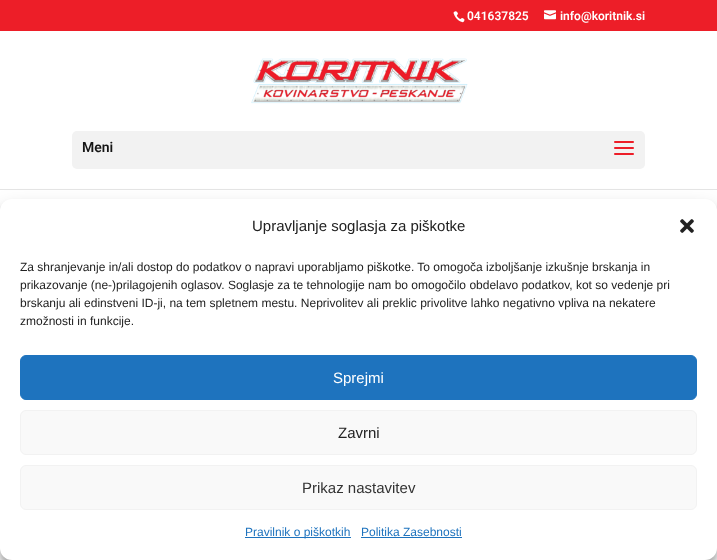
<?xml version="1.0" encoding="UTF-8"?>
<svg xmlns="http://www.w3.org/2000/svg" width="717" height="560">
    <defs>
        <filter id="blur1" x="-50%" y="-200%" width="200%" height="500%"><feGaussianBlur stdDeviation="10"/></filter>
        <filter id="blur2" x="-50%" y="-200%" width="200%" height="500%"><feGaussianBlur stdDeviation="3"/></filter>
    </defs>
    <rect width="100%" height="100%" fill="#FFFFFF"/>
    <rect x="0" y="0" width="717" height="31" fill="#ED1E28"/>
    <image x="453" y="11" width="12" height="12" href="img_01.png"/>
    <text x="467" y="20" font-family="Roboto" font-size="12" font-weight="600" fill="#FFFFFF">041637825</text>
    <image x="544" y="10" width="12" height="10" href="img_02.png"/>
    <text x="560" y="20" font-family="Roboto" font-size="12" font-weight="600" fill="#FFFFFF">info@koritnik.si</text>
    <rect x="0" y="209" width="717" height="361" rx="12" fill="#000000" fill-opacity="0.19" filter="url(#blur1)"/>
    <rect x="0" y="189" width="717" height="1" fill="#E4E4E4"/>
    <image x="251" y="58" width="217" height="46" href="img_03.png"/>
    <rect x="72" y="131" width="573" height="38" rx="5" fill="#F2F2F2"/>
    <text x="82" y="152" font-family="Roboto" font-size="14" font-weight="600" fill="#161616">Meni</text>
    <image x="614" y="141" width="20" height="14" href="img_04.png"/>
    <rect x="0" y="205" width="717" height="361" rx="12" fill="#000000" fill-opacity="0.23" filter="url(#blur2)"/>
    <rect x="0" y="199" width="717" height="361" rx="12" fill="#FFFFFF"/>
    <text x="252" y="231" font-family="Liberation Sans" font-size="15" fill="#222222">Upravljanje soglasja za piškotke</text>
    <image x="680" y="219" width="14" height="14" href="img_05.png"/>
    <text font-family="Liberation Sans" font-size="12" fill="#222222">
        <tspan x="20" y="271">Za shranjevanje in/ali dostop do podatkov o napravi uporabljamo piškotke. To omogoča izboljšanje izkušnje brskanja in</tspan>
        <tspan x="20" y="289">prikazovanje (ne-)prilagojenih oglasov. Soglasje za te tehnologije nam bo omogočilo obdelavo podatkov, kot so vedenje pri</tspan>
        <tspan x="20" y="307">brskanju ali edinstveni ID-ji, na tem spletnem mestu. Neprivolitev ali preklic privolitve lahko negativno vpliva na nekatere</tspan>
        <tspan x="20" y="325">zmožnosti in funkcije.</tspan>
    </text>
    <rect x="20.5" y="355.5" width="676" height="44" rx="5.5" fill="#1E73BE" stroke="#1E73BE"/>
    <text x="333" y="383" font-family="Liberation Sans" font-size="15" fill="#FFFFFF">Sprejmi</text>
    <rect x="20.5" y="410.5" width="676" height="44" rx="5.5" fill="#F9F9F9" stroke="#F2F2F2"/>
    <text x="338" y="438" font-family="Liberation Sans" font-size="15" fill="#222222">Zavrni</text>
    <rect x="20.5" y="465.5" width="676" height="44" rx="5.5" fill="#F9F9F9" stroke="#F2F2F2"/>
    <text x="302" y="493" font-family="Liberation Sans" font-size="15" fill="#333333">Prikaz nastavitev</text>
    <rect x="245" y="537" width="106" height="1" fill="#1E73BE"/>
    <text x="245" y="536" font-family="Liberation Sans" font-size="12" fill="#1E73BE">Pravilnik o piškotkih</text>
    <text x="361" y="536" font-family="Liberation Sans" font-size="12" fill="#1E73BE">Politika Zasebnosti</text>
    <rect x="361" y="537" width="101" height="1" fill="#1E73BE"/>
</svg>
